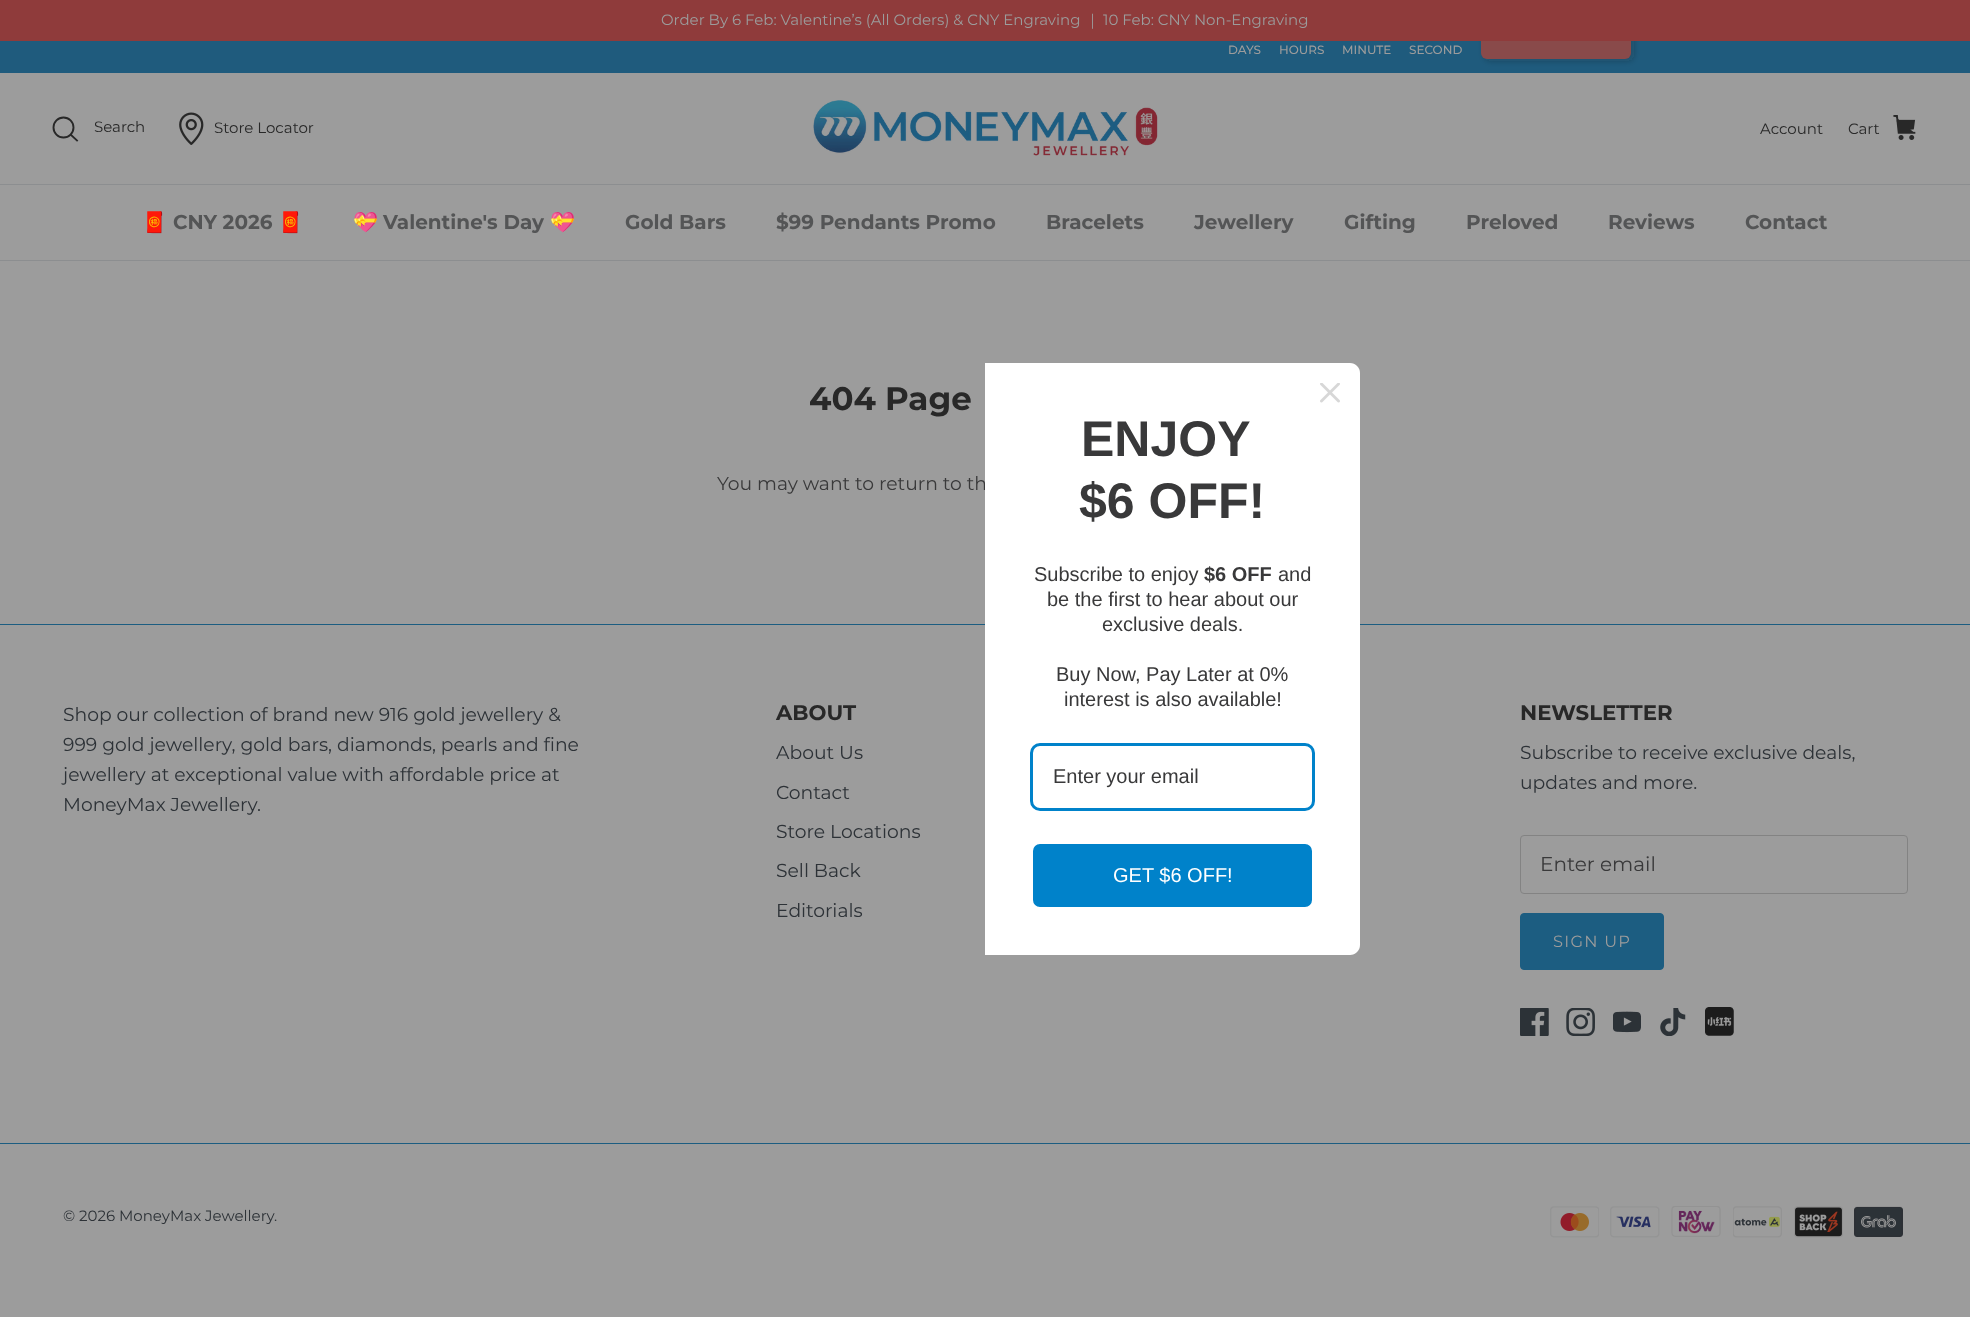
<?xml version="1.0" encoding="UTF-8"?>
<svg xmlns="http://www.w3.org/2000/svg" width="1970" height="1317">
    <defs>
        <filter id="blur1" x="-50%" y="-200%" width="200%" height="500%"><feGaussianBlur stdDeviation="3"/></filter>
    </defs>
    <rect width="100%" height="100%" fill="#9C9C9C"/>
    <rect x="0" y="41" width="1970" height="32" fill="#1F5B7D"/>
    <rect x="1484" y="16" width="150" height="45" rx="6" fill="#1C1C1C" fill-opacity="0.24" filter="url(#blur1)"/>
    <rect x="1481" y="14" width="150" height="45" rx="6" fill="#894A4A"/>
    <rect x="0" y="0" width="1970" height="41" fill="#8F3B3B"/>
    <text x="661" y="25" font-family="Montserrat" font-size="15" fill="#9C9C9C">Order By 6 Feb: Valentine’s (All Orders) &amp; CNY Engraving</text>
    <text x="1085" y="25" font-family="WenQuanYi Zen Hei" font-size="15" font-weight="500" fill="#9C9C9C">｜</text>
    <text x="1103" y="25" font-family="Montserrat" font-size="15" fill="#9C9C9C">10 Feb: CNY Non-Engraving</text>
    <text x="1228" y="54" font-family="Montserrat" font-size="12" font-weight="500" fill="#9C9C9C">DAYS</text>
    <text x="1279" y="54" font-family="Montserrat" font-size="12" font-weight="500" fill="#9C9C9C">HOURS</text>
    <text x="1342" y="54" font-family="Montserrat" font-size="12" font-weight="500" fill="#9C9C9C">MINUTE</text>
    <text x="1409" y="54" font-family="Montserrat" font-size="12" font-weight="500" fill="#9C9C9C">SECOND</text>
    <rect x="0" y="184" width="1970" height="1" fill="#8C8E90"/>
    <circle cx="63.5" cy="127.5" r="10" fill="none" stroke="#282828" stroke-width="1.9"/>
    <text x="94" y="132" font-family="Montserrat" font-size="15" fill="#282828">Search</text>
    <path d="M 71 135 L 77 140.5" fill="none" stroke="#282828" stroke-width="1.9" stroke-linecap="square"/>
    <image x="179" y="112" width="25" height="33" href="img_01.png"/>
    <text x="214" y="133" font-family="Montserrat" font-size="15" fill="#282828">Store Locator</text>
    <image x="813" y="100" width="345" height="56" href="img_02.png"/>
    <text x="1760" y="134" font-family="Montserrat" font-size="15" fill="#282828">Account</text>
    <text x="1848" y="134" font-family="Montserrat" font-size="15" fill="#282828">Cart</text>
    <image x="1893" y="115" width="23" height="25" href="img_03.png"/>
    <rect x="0" y="260" width="1970" height="1" fill="#8C8E90"/>
    <text x="142" y="229" font-family="Noto Color Emoji" font-size="20" font-weight="700" fill="#545556">🧧</text>
    <text x="173" y="229" font-family="Montserrat" font-size="20" font-weight="700" fill="#545556">CNY 2026</text>
    <text x="278" y="229" font-family="Noto Color Emoji" font-size="20" font-weight="700" fill="#545556">🧧</text>
    <text x="353" y="229" font-family="Noto Color Emoji" font-size="20" font-weight="700" fill="#545556">💝</text>
    <text x="383" y="229" font-family="Montserrat" font-size="20" font-weight="700" fill="#545556">Valentine's Day</text>
    <text x="550" y="229" font-family="Noto Color Emoji" font-size="20" font-weight="700" fill="#545556">💝</text>
    <text x="625" y="229" font-family="Montserrat" font-size="20" font-weight="700" fill="#545556">Gold Bars</text>
    <text x="776" y="229" font-family="Montserrat" font-size="20" font-weight="700" fill="#545556">$99 Pendants Promo</text>
    <text x="1046" y="229" font-family="Montserrat" font-size="20" font-weight="700" fill="#545556">Bracelets</text>
    <text x="1194" y="229" font-family="Montserrat" font-size="20" font-weight="700" fill="#545556">Jewellery</text>
    <text x="1344" y="229" font-family="Montserrat" font-size="20" font-weight="700" fill="#545556">Gifting</text>
    <text x="1466" y="229" font-family="Montserrat" font-size="20" font-weight="700" fill="#545556">Preloved</text>
    <text x="1608" y="229" font-family="Montserrat" font-size="20" font-weight="700" fill="#545556">Reviews</text>
    <text x="1745" y="229" font-family="Montserrat" font-size="20" font-weight="700" fill="#545556">Contact</text>
    <text x="809" y="410" font-family="Montserrat" font-size="32.5" font-weight="700" fill="#282828">404 Page</text>
    <text x="717" y="490" font-family="Montserrat" font-size="18.75" fill="#39393A">You may want to return to th</text>
    <rect x="0" y="624" width="1970" height="1" fill="#1C5D81"/>
    <path d="M 985 363 H 1350 C 1355.5 363 1360 367.5 1360 373 V 945 C 1360 950.5 1355.5 955 1350 955 H 985 Z" fill="#FFFFFF"/>
    <image x="1320" y="383" width="20" height="20" href="img_04.png"/>
    <text x="1081" y="456" font-family="Liberation Sans" font-size="50" font-weight="700" fill="#39393A">ENJOY</text>
    <text x="1079" y="518" font-family="Liberation Sans" font-size="50" font-weight="700" fill="#39393A">$6 OFF!</text>
    <text x="1034" y="581" font-family="Liberation Sans" font-size="20" fill="#39393A">Subscribe to enjoy</text>
    <text x="1204" y="581" font-family="Liberation Sans" font-size="20" font-weight="700" fill="#39393A">$6 OFF</text>
    <text x="1278" y="581" font-family="Liberation Sans" font-size="20" fill="#39393A">and</text>
    <text x="1047" y="606" font-family="Liberation Sans" font-size="20" fill="#39393A">be the first to hear about our</text>
    <text x="1102" y="631" font-family="Liberation Sans" font-size="20" fill="#39393A">exclusive deals.</text>
    <text x="1056" y="681" font-family="Liberation Sans" font-size="20" fill="#39393A">Buy Now, Pay Later at 0%</text>
    <text x="1064" y="706" font-family="Liberation Sans" font-size="20" fill="#39393A">interest is also available!</text>
    <rect x="1031.5" y="744.5" width="282" height="65" rx="8.5" fill="none" stroke="#0082CA" stroke-width="3"/>
    <text x="1053" y="783" font-family="Liberation Sans" font-size="20" fill="#39393A">Enter your email</text>
    <rect x="1031.5" y="842.5" width="282" height="66" rx="8.5" fill="#0082CA" stroke="#FFFFFF" stroke-width="3"/>
    <text x="1113" y="882" font-family="Liberation Sans" font-size="20" fill="#FFFFFF">GET $6 OFF!</text>
    <text font-family="Montserrat" font-size="18.75" fill="#2D3237">
        <tspan x="63" y="721">Shop our collection of brand new 916 gold jewellery &amp;</tspan>
        <tspan x="63" y="751">999 gold jewellery, gold bars, diamonds, pearls and fine</tspan>
        <tspan x="63" y="781">jewellery at exceptional value with affordable price at</tspan>
        <tspan x="63" y="811">MoneyMax Jewellery.</tspan>
    </text>
    <text x="776" y="720" font-family="Montserrat" font-size="21.25" font-weight="700" fill="#282828">ABOUT</text>
    <text x="776" y="759" font-family="Montserrat" font-size="18.75" fill="#2D3237">About Us</text>
    <text x="776" y="799" font-family="Montserrat" font-size="18.75" fill="#2D3237">Contact</text>
    <text x="776" y="838" font-family="Montserrat" font-size="18.75" fill="#2D3237">Store Locations</text>
    <text x="776" y="877" font-family="Montserrat" font-size="18.75" fill="#2D3237">Sell Back</text>
    <text x="776" y="917" font-family="Montserrat" font-size="18.75" fill="#2D3237">Editorials</text>
    <text x="1520" y="720" font-family="Montserrat" font-size="21.25" font-weight="700" fill="#282828">NEWSLETTER</text>
    <text font-family="Montserrat" font-size="18.75" fill="#2D3237">
        <tspan x="1520" y="759">Subscribe to receive exclusive deals,</tspan>
        <tspan x="1520" y="789">updates and more.</tspan>
    </text>
    <rect x="1520.5" y="835.5" width="387" height="58" rx="3.5" fill="none" stroke="#838383"/>
    <text x="1540" y="871" font-family="Montserrat" font-size="20" fill="#39393A">Enter email</text>
    <rect x="1520.5" y="913.5" width="143" height="56" rx="3.5" fill="#1C5D81" stroke="#1C5D81"/>
    <text x="1553" y="947" font-family="Montserrat" font-size="16.25" letter-spacing="1.25" fill="#9C9C9C">SIGN UP</text>
    <image x="1520" y="1008" width="29" height="28" href="img_05.png"/>
    <image x="1566" y="1008" width="29" height="28" href="img_06.png"/>
    <image x="1613" y="1011" width="28" height="22" href="img_07.png"/>
    <image x="1660" y="1008" width="26" height="28" href="img_08.png"/>
    <image x="1705" y="1007" width="29" height="29" href="img_09.png"/>
    <rect x="0" y="1143" width="1970" height="1" fill="#1C5D81"/>
    <text x="63" y="1221" font-family="Montserrat" font-size="15" fill="#2D3237">© 2026</text>
    <text x="119" y="1221" font-family="Montserrat" font-size="15" fill="#2D3237">MoneyMax Jewellery</text>
    <text x="274" y="1221" font-family="Montserrat" font-size="15" fill="#2D3237">.</text>
    <image x="1550" y="1206" width="49" height="32" href="img_10.png"/>
    <image x="1610" y="1206" width="50" height="32" href="img_11.png"/>
    <image x="1671" y="1206" width="50" height="31" href="img_12.png"/>
    <image x="1733" y="1206" width="49" height="32" href="img_13.png"/>
    <image x="1794" y="1206" width="49" height="32" href="img_14.png"/>
    <image x="1854" y="1206" width="49" height="31" href="img_15.png"/>
</svg>
